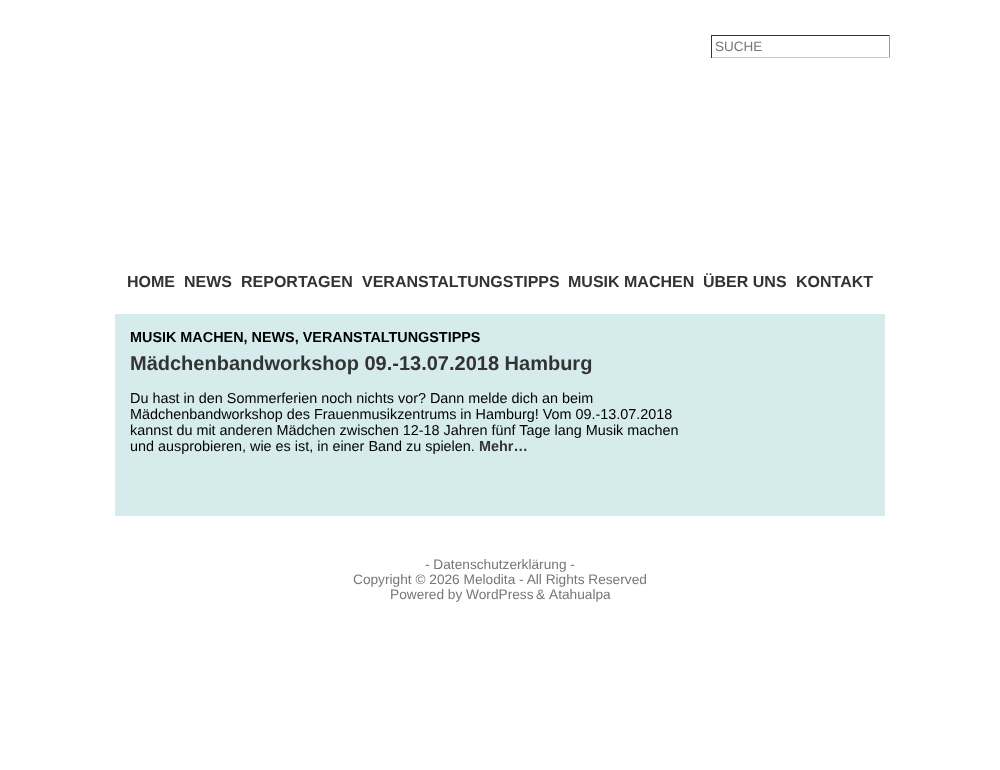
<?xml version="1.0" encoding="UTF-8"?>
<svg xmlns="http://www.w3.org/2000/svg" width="1000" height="770">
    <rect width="100%" height="100%" fill="#FFFFFF"/>
    <rect x="711" y="35" width="179" height="1" fill="#333333"/>
    <rect x="889" y="35" width="1" height="23" fill="#999999"/>
    <rect x="711" y="57" width="179" height="1" fill="#CCCCCC"/>
    <rect x="711" y="35" width="1" height="23" fill="#333333"/>
    <text x="715" y="51" font-family="Liberation Sans" font-size="13.5" fill="#777777">SUCHE</text>
    <text x="127" y="287" font-family="Liberation Sans" font-size="16" font-weight="700" fill="#333333">HOME</text>
    <text x="184" y="287" font-family="Liberation Sans" font-size="16" font-weight="700" fill="#333333">NEWS</text>
    <text x="241" y="287" font-family="Liberation Sans" font-size="16" font-weight="700" fill="#333333">REPORTAGEN</text>
    <text x="362" y="287" font-family="Liberation Sans" font-size="16" font-weight="700" fill="#333333">VERANSTALTUNGSTIPPS</text>
    <text x="568" y="287" font-family="Liberation Sans" font-size="16" font-weight="700" fill="#333333">MUSIK MACHEN</text>
    <text x="703" y="287" font-family="Liberation Sans" font-size="16" font-weight="700" fill="#333333">ÜBER UNS</text>
    <text x="796" y="287" font-family="Liberation Sans" font-size="16" font-weight="700" fill="#333333">KONTAKT</text>
    <rect x="115" y="314" width="770" height="202" fill="#D6EBEB"/>
    <text x="130" y="342" font-family="Liberation Sans" font-size="14.4" font-weight="700" fill="#000000">MUSIK MACHEN, NEWS, VERANSTALTUNGSTIPPS</text>
    <text x="130" y="370" font-family="Liberation Sans" font-size="20" font-weight="700" fill="#333333">Mädchenbandworkshop 09.-13.07.2018 Hamburg</text>
    <text font-family="Liberation Sans" font-size="14.4" fill="#000000">
        <tspan x="130" y="403">Du hast in den Sommerferien noch nichts vor? Dann melde dich an beim</tspan>
        <tspan x="130" y="419">Mädchenbandworkshop des Frauenmusikzentrums in Hamburg! Vom 09.-13.07.2018</tspan>
        <tspan x="130" y="435">kannst du mit anderen Mädchen zwischen 12-18 Jahren fünf Tage lang Musik machen</tspan>
        <tspan x="130" y="451">und ausprobieren, wie es ist, in einer Band zu spielen.</tspan>
    </text>
    <text x="479" y="451" font-family="Liberation Sans" font-size="14.4" font-weight="700" fill="#333333">Mehr…</text>
    <text x="425" y="569" font-family="Liberation Sans" font-size="13.7" fill="#777777">- Datenschutzerklärung -</text>
    <text x="353" y="584" font-family="Liberation Sans" font-size="13.7" fill="#777777">Copyright © 2026 Melodita - All Rights Reserved</text>
    <text x="390" y="599" font-family="Liberation Sans" font-size="13.7" fill="#777777">Powered by WordPress</text>
    <text x="536" y="599" font-family="Liberation Sans" font-size="13.7" fill="#777777">&amp;</text>
    <text x="549" y="599" font-family="Liberation Sans" font-size="13.7" fill="#777777">Atahualpa</text>
</svg>
